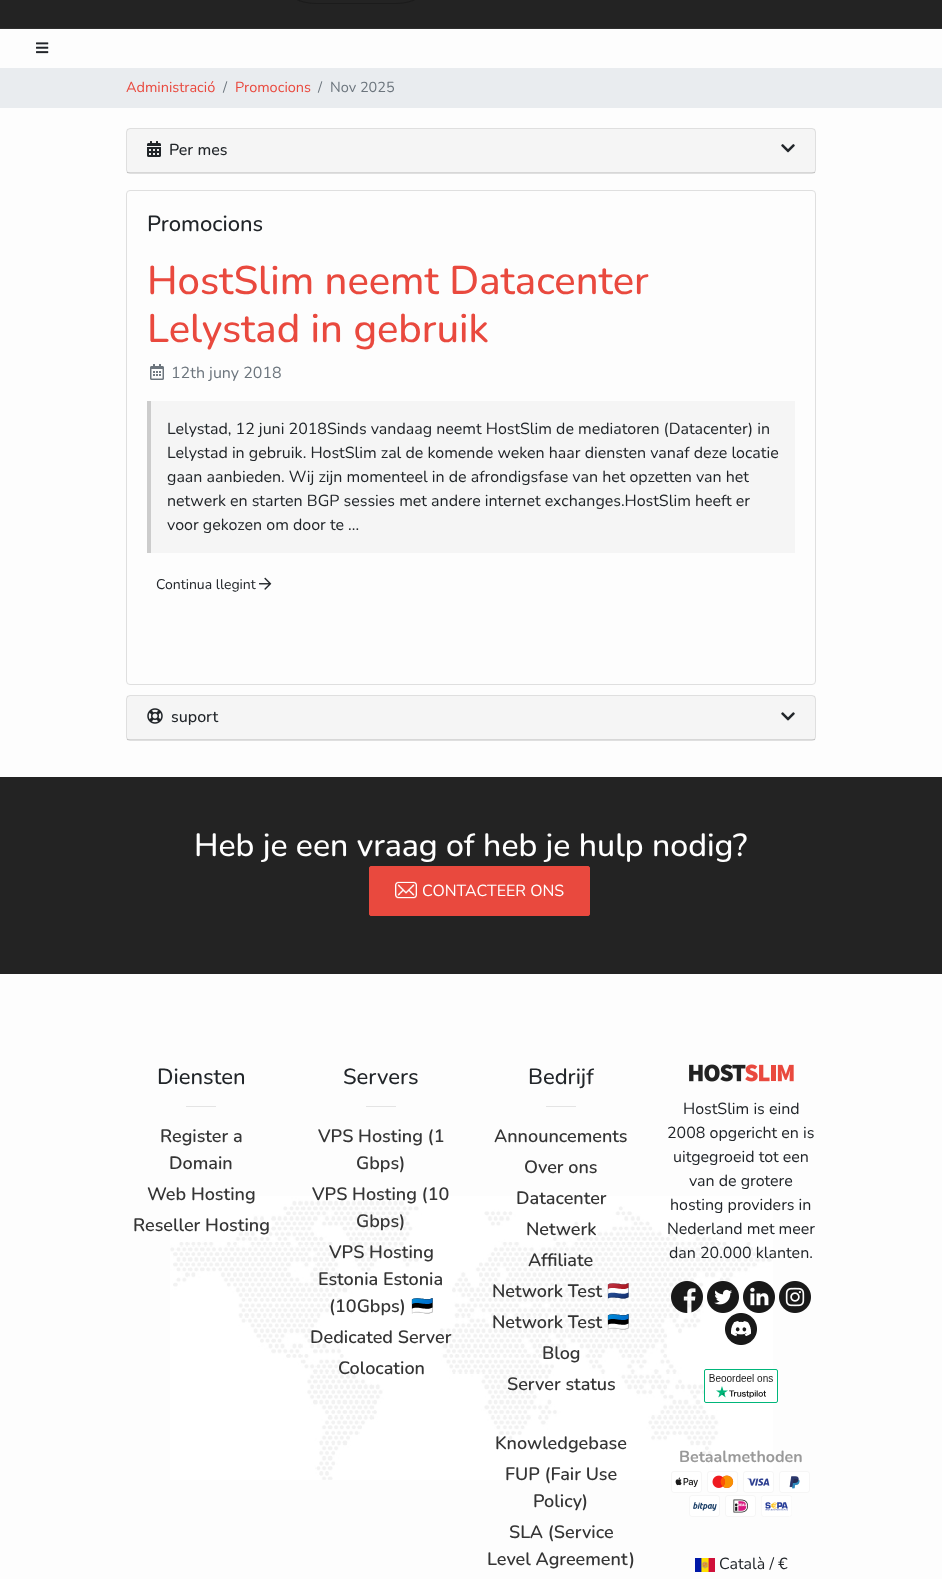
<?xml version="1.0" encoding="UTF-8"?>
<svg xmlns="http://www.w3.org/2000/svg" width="942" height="1579">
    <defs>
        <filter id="blur1" x="-50%" y="-200%" width="200%" height="500%"><feGaussianBlur stdDeviation="0.5"/></filter>
    </defs>
    <rect width="100%" height="100%" fill="#FDFDFD"/>
    <rect x="0" y="0" width="942" height="28" fill="#232323"/>
    <rect x="0" y="28" width="942" height="1" fill="#2E2E2E"/>
    <rect x="285.5" y="-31.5" width="141" height="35" rx="30.5" fill="none" stroke="#1B1B1B"/>
    <image x="36" y="42" width="13" height="12" href="img_01.png"/>
    <rect x="0" y="68" width="942" height="40" fill="#E9ECEF"/>
    <text x="126" y="92" font-family="Nunito" font-size="14.5" fill="#E9493E">Administració</text>
    <text x="223" y="92" font-family="Nunito" font-size="14.5" fill="#6C757D">/</text>
    <text x="235" y="92" font-family="Nunito" font-size="14.5" fill="#E9493E">Promocions</text>
    <text x="318" y="92" font-family="Nunito" font-size="14.5" fill="#6C757D">/</text>
    <text x="330" y="92" font-family="Nunito" font-size="14.5" fill="#6C757D">Nov 2025</text>
    <rect x="126.5" y="128.5" width="689" height="45" rx="3.5" fill="none" stroke="#DFDFDF"/>
    <rect x="127" y="129" width="688" height="44" fill="#000000" fill-opacity="0.03"/>
    <rect x="127" y="172" width="688" height="1" fill="#000000" fill-opacity="0.12"/>
    <image x="147" y="141" width="14" height="16" href="img_02.png"/>
    <text x="169" y="155" font-family="Nunito" font-size="16" font-weight="500" fill="#212529">Per mes</text>
    <image x="781" y="144" width="14" height="9" href="img_03.png"/>
    <rect x="126.5" y="190.5" width="689" height="494" rx="3.5" fill="none" stroke="#DFDFDF"/>
    <text x="147" y="231" font-family="Nunito" font-size="22" font-weight="500" fill="#212529">Promocions</text>
    <text font-family="Nunito" font-size="40" font-weight="500" fill="#E9493E">
        <tspan x="147" y="294">HostSlim neemt Datacenter</tspan>
        <tspan x="147" y="342">Lelystad in gebruik</tspan>
    </text>
    <image x="150" y="364" width="14" height="16" href="img_04.png"/>
    <text x="171" y="378" font-family="Nunito" font-size="16" fill="#6C757D">12th juny 2018</text>
    <rect x="151" y="401" width="644" height="152" fill="#F5F5F5"/>
    <rect x="147" y="401" width="4" height="152" fill="#CCCCCC"/>
    <text font-family="Nunito" font-size="16" fill="#212529">
        <tspan x="167" y="434">Lelystad, 12 juni 2018Sinds vandaag neemt HostSlim de mediatoren (Datacenter) in</tspan>
        <tspan x="167" y="458">Lelystad in gebruik. HostSlim zal de komende weken haar diensten vanaf deze locatie</tspan>
        <tspan x="167" y="482">gaan aanbieden. Wij zijn momenteel in de afrondigsfase van het opzetten van het</tspan>
        <tspan x="167" y="506">netwerk en starten BGP sessies met andere internet exchanges.HostSlim heeft er</tspan>
        <tspan x="167" y="530">voor gekozen om door te ...</tspan>
    </text>
    <text x="156" y="589" font-family="Nunito" font-size="14" fill="#212529">Continua llegint</text>
    <image x="259" y="577" width="13" height="13" href="img_05.png"/>
    <rect x="126.5" y="695.5" width="689" height="45" rx="3.5" fill="none" stroke="#DFDFDF"/>
    <rect x="127" y="696" width="688" height="44" fill="#000000" fill-opacity="0.03"/>
    <rect x="127" y="739" width="688" height="1" fill="#000000" fill-opacity="0.12"/>
    <image x="147" y="708" width="16" height="16" href="img_06.png"/>
    <text x="171" y="722" font-family="Nunito" font-size="16" font-weight="500" fill="#212529">suport</text>
    <image x="781" y="712" width="14" height="9" href="img_07.png"/>
    <rect x="0" y="777" width="942" height="197" fill="#232323"/>
    <text x="194" y="856" font-family="Nunito" font-size="32" font-weight="500" fill="#FFFFFF">Heb je een vraag of heb je hulp nodig?</text>
    <rect x="369.5" y="866.5" width="220" height="49" rx="1.5" fill="#E9493E" stroke="#E9493E"/>
    <image x="395" y="881" width="22" height="18" href="img_08.png"/>
    <text x="422" y="896" font-family="Nunito" font-size="16" fill="#FFFFFF">CONTACTEER ONS</text>
    <image x="170" y="1196" width="603" height="284" href="img_09.png"/>
    <text x="157" y="1084" font-family="Nunito" font-size="22" font-weight="500" fill="#212529">Diensten</text>
    <rect x="186" y="1106" width="30" height="1" fill="#E4E4E4"/>
    <text x="160" y="1142" font-family="Nunito" font-size="18" font-weight="600" fill="#353535">Register a</text>
    <text x="169" y="1169" font-family="Nunito" font-size="18" font-weight="600" fill="#353535">Domain</text>
    <text x="147" y="1200" font-family="Nunito" font-size="18" font-weight="600" fill="#353535">Web Hosting</text>
    <text x="133" y="1231" font-family="Nunito" font-size="18" font-weight="600" fill="#353535">Reseller Hosting</text>
    <text x="343" y="1084" font-family="Nunito" font-size="22" font-weight="500" fill="#212529">Servers</text>
    <rect x="366" y="1106" width="30" height="1" fill="#E4E4E4"/>
    <text x="318" y="1142" font-family="Nunito" font-size="18" font-weight="600" fill="#353535">VPS Hosting (1</text>
    <text x="356" y="1169" font-family="Nunito" font-size="18" font-weight="600" fill="#353535">Gbps)</text>
    <text x="312" y="1200" font-family="Nunito" font-size="18" font-weight="600" fill="#353535">VPS Hosting (10</text>
    <text x="356" y="1227" font-family="Nunito" font-size="18" font-weight="600" fill="#353535">Gbps)</text>
    <text x="329" y="1258" font-family="Nunito" font-size="18" font-weight="600" fill="#353535">VPS Hosting</text>
    <text x="318" y="1285" font-family="Nunito" font-size="18" font-weight="600" fill="#353535">Estonia Estonia</text>
    <text x="329" y="1312" font-family="Nunito" font-size="18" font-weight="600" fill="#353535">(10Gbps)</text>
    <text x="411" y="1312" font-family="Noto Color Emoji" font-size="18" font-weight="700" fill="#353535">🇪🇪</text>
    <text x="310" y="1343" font-family="Nunito" font-size="18" font-weight="600" fill="#353535">Dedicated Server</text>
    <text x="338" y="1374" font-family="Nunito" font-size="18" font-weight="600" fill="#353535">Colocation</text>
    <text x="528" y="1084" font-family="Nunito" font-size="22" font-weight="500" fill="#212529">Bedrijf</text>
    <rect x="546" y="1106" width="30" height="1" fill="#E4E4E4"/>
    <text x="494" y="1142" font-family="Nunito" font-size="18" font-weight="600" fill="#353535">Announcements</text>
    <text x="524" y="1173" font-family="Nunito" font-size="18" font-weight="600" fill="#353535">Over ons</text>
    <text x="516" y="1204" font-family="Nunito" font-size="18" font-weight="600" fill="#353535">Datacenter</text>
    <text x="526" y="1235" font-family="Nunito" font-size="18" font-weight="600" fill="#353535">Netwerk</text>
    <text x="528" y="1266" font-family="Nunito" font-size="18" font-weight="600" fill="#353535">Affiliate</text>
    <text x="492" y="1297" font-family="Nunito" font-size="18" font-weight="600" fill="#353535">Network Test</text>
    <text x="607" y="1297" font-family="Noto Color Emoji" font-size="18" font-weight="700" fill="#353535">🇳🇱</text>
    <text x="492" y="1328" font-family="Nunito" font-size="18" font-weight="600" fill="#353535">Network Test</text>
    <text x="607" y="1328" font-family="Noto Color Emoji" font-size="18" font-weight="700" fill="#353535">🇪🇪</text>
    <text x="542" y="1359" font-family="Nunito" font-size="18" font-weight="600" fill="#353535">Blog</text>
    <text x="507" y="1390" font-family="Nunito" font-size="18" font-weight="600" fill="#353535">Server status</text>
    <text x="495" y="1449" font-family="Nunito" font-size="18" font-weight="600" fill="#353535">Knowledgebase</text>
    <text x="505" y="1480" font-family="Nunito" font-size="18" font-weight="600" fill="#353535">FUP (Fair Use</text>
    <text x="533" y="1507" font-family="Nunito" font-size="18" font-weight="600" fill="#353535">Policy)</text>
    <text x="509" y="1538" font-family="Nunito" font-size="18" font-weight="600" fill="#353535">SLA (Service</text>
    <text x="487" y="1565" font-family="Nunito" font-size="18" font-weight="600" fill="#353535">Level Agreement)</text>
    <image x="689" y="1064" width="105" height="18" href="img_10.png"/>
    <text x="683" y="1114" font-family="Nunito" font-size="16" fill="#212529">HostSlim is eind</text>
    <text x="667" y="1138" font-family="Nunito" font-size="16" fill="#212529">2008 opgericht en is</text>
    <text x="673" y="1162" font-family="Nunito" font-size="16" fill="#212529">uitgegroeid tot een</text>
    <text x="689" y="1186" font-family="Nunito" font-size="16" fill="#212529">van de grotere</text>
    <text x="670" y="1210" font-family="Nunito" font-size="16" fill="#212529">hosting providers in</text>
    <text x="667" y="1234" font-family="Nunito" font-size="16" fill="#212529">Nederland met meer</text>
    <text x="669" y="1258" font-family="Nunito" font-size="16" fill="#212529">dan 20.000 klanten.</text>
    <image x="671" y="1281" width="32" height="32" href="img_11.png"/>
    <image x="707" y="1281" width="32" height="32" href="img_12.png"/>
    <image x="743" y="1281" width="32" height="32" href="img_13.png"/>
    <image x="779" y="1281" width="32" height="32" href="img_14.png"/>
    <image x="725" y="1313" width="32" height="32" href="img_15.png"/>
    <image x="704" y="1369" width="74" height="34" href="img_16.png"/>
    <text x="679" y="1462" font-family="Nunito" font-size="16" font-weight="700" fill="#999999">Betaalmethoden</text>
    <image x="671" y="1471" width="31" height="22" href="img_17.png"/>
    <image x="707" y="1471" width="31" height="22" href="img_18.png"/>
    <image x="743" y="1471" width="31" height="22" href="img_19.png"/>
    <image x="779" y="1471" width="31" height="22" href="img_20.png"/>
    <image x="689" y="1495" width="31" height="22" href="img_21.png"/>
    <image x="725" y="1495" width="31" height="22" href="img_22.png"/>
    <image x="761" y="1495" width="31" height="22" href="img_23.png"/>
    <rect x="695" y="1558" width="20" height="14" fill="#888888" filter="url(#blur1)"/>
    <image x="695" y="1558" width="20" height="14" href="img_24.png"/>
    <text x="719" y="1569" font-family="Nunito" font-size="16" fill="#212529">Català / €</text>
</svg>
